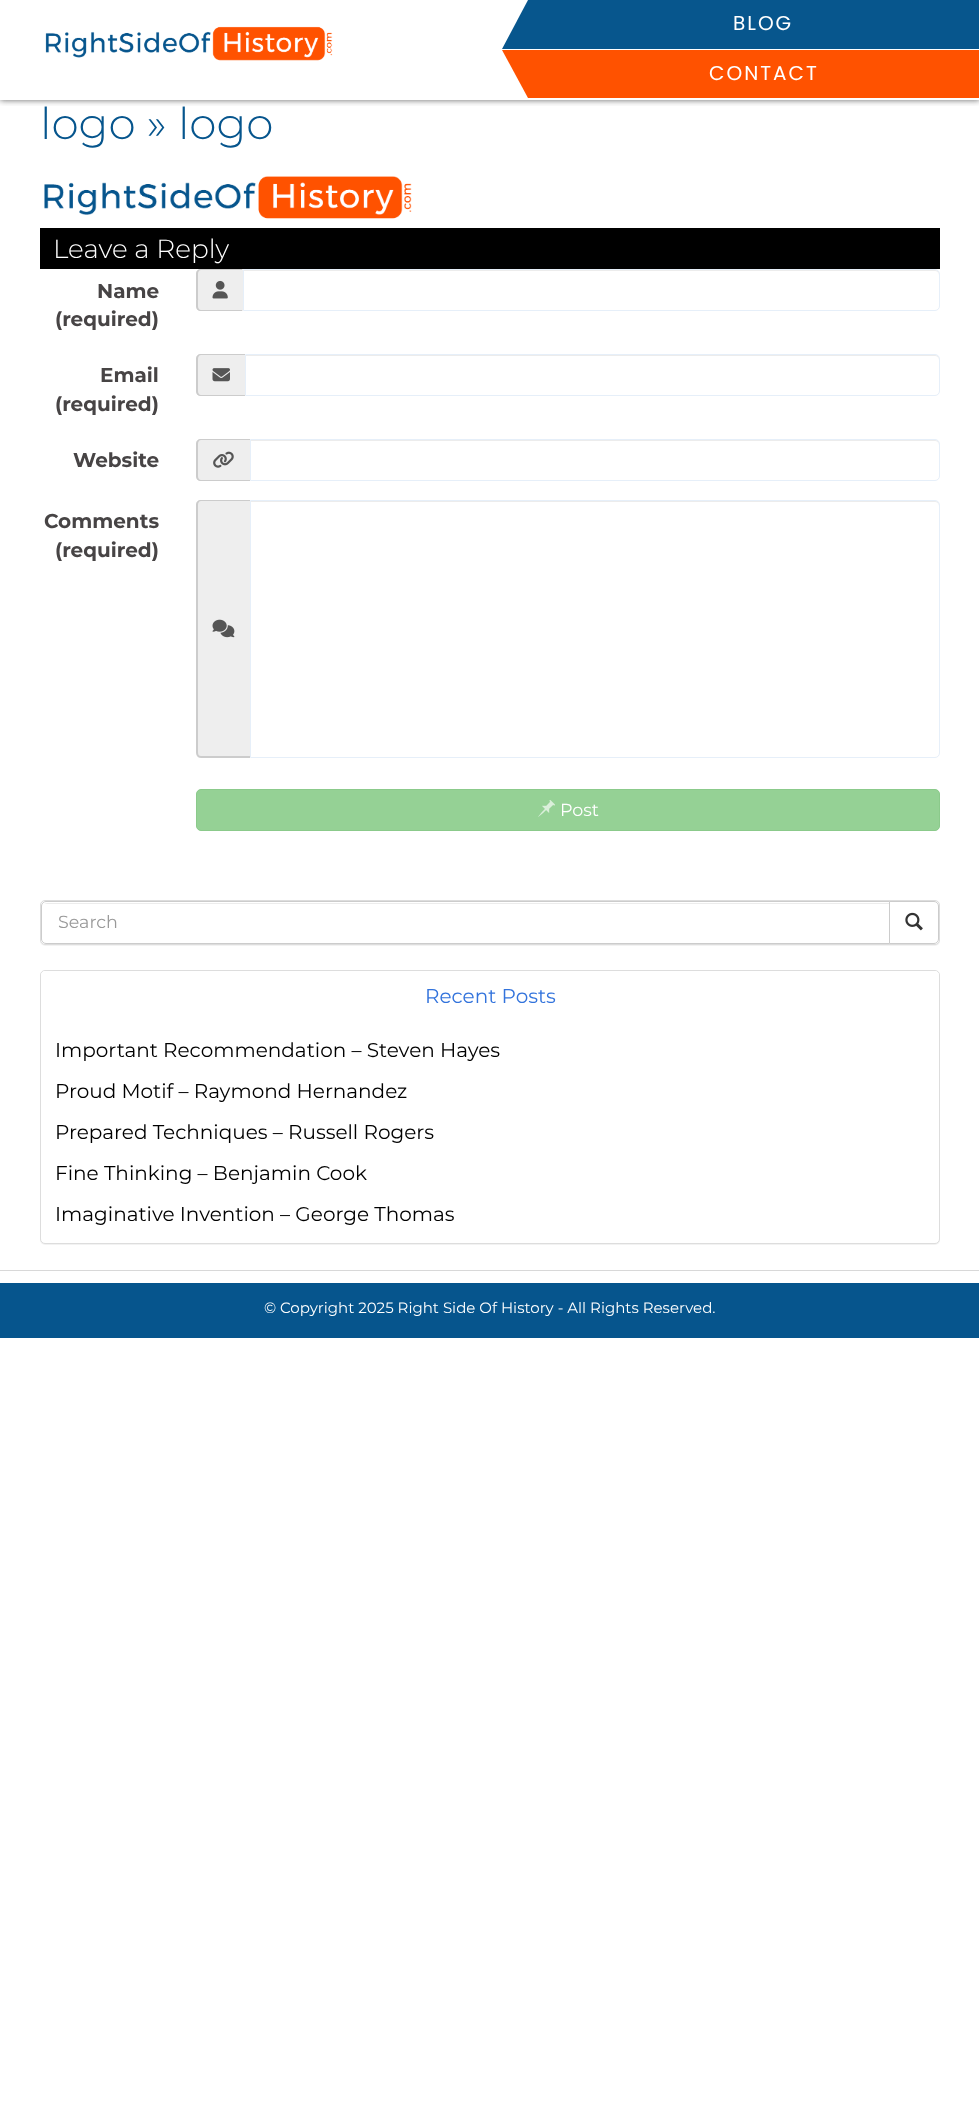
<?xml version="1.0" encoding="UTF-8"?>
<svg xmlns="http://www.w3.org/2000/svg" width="979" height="2102">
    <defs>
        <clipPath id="clip1"><rect x="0" y="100" width="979" height="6"/></clipPath>
        <filter id="blur1" x="-50%" y="-200%" width="200%" height="500%"><feGaussianBlur stdDeviation="3"/></filter>
        <filter id="blur2" x="-50%" y="-200%" width="200%" height="500%"><feGaussianBlur stdDeviation="0.5"/></filter>
    </defs>
    <rect width="100%" height="100%" fill="#FFFFFF"/>
    <g clip-path="url(#clip1)">
        <rect x="0" y="0" width="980" height="100" fill="#636363" filter="url(#blur1)"/>
    </g>
    <image x="45" y="26" width="288" height="35" href="img_01.png"/>
    <path d="M 528 0 H 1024 L 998 49 H 502 Z" fill="#07568D"/>
    <text x="733" y="30" font-family="Poppins" font-size="20" letter-spacing="2" fill="#FFFFFF">BLOG</text>
    <path d="M 502 50 H 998 L 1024 98 H 528 Z" fill="#FF5200"/>
    <text x="709" y="80" font-family="Poppins" font-size="20" letter-spacing="2" fill="#FFFFFF">CONTACT</text>
    <text x="40" y="139" font-family="Montserrat" font-size="43.75" font-weight="300" fill="#06558D">logo » logo</text>
    <image x="44" y="176" width="368" height="43" href="img_02.png"/>
    <rect x="40" y="228" width="900" height="41" fill="#000000"/>
    <text x="53" y="258" font-family="Montserrat" font-size="26.25" font-weight="300" fill="#FFFFFF">Leave a Reply</text>
    <text x="97" y="298" font-family="Montserrat" font-size="20" font-weight="700" fill="#474445">Name</text>
    <text x="55" y="326" font-family="Montserrat" font-size="20" font-weight="700" fill="#474445">(required)</text>
    <path d="M 201 269 H 243 V 311 H 201 C 198 311 196 309 196 306 V 274 C 196 271 198 269 201 269 Z" fill="#EEEEEE"/>
    <path d="M 201 269 H 242 V 311 H 201 C 198 311 196 309 196 306 V 274 C 196 271 198 269 201 269 Z M 201 270 H 242 V 310 H 201 C 199 310 198 308 198 306 V 274 C 198 272 199 270 201 270 Z" fill="#CCCCCC" fill-rule="evenodd"/>
    <image x="212" y="280" width="16" height="19" href="img_03.png"/>
    <path d="M 244 271 H 935 C 937 271 939 273 939 275 V 274 C 939 272 937 270 935 270 H 244 Z" fill="#ECECEC"/>
    <path d="M 243.5 269.5 H 935 C 937.5 269.5 939.5 271.5 939.5 274 V 306 C 939.5 308.5 937.5 310.5 935 310.5 H 243.5 Z" fill="none" stroke="#E6EFF9"/>
    <text x="100" y="382" font-family="Montserrat" font-size="20" font-weight="700" fill="#474445">Email</text>
    <text x="55" y="411" font-family="Montserrat" font-size="20" font-weight="700" fill="#474445">(required)</text>
    <path d="M 201 354 H 245 V 396 H 201 C 198 396 196 394 196 391 V 359 C 196 356 198 354 201 354 Z" fill="#EEEEEE"/>
    <path d="M 201 354 H 245 V 396 H 201 C 198 396 196 394 196 391 V 359 C 196 356 198 354 201 354 Z M 201 355 H 245 V 395 H 201 C 199 395 198 393 198 391 V 359 C 198 357 199 355 201 355 Z" fill="#CCCCCC" fill-rule="evenodd"/>
    <image x="212" y="368" width="18" height="14" href="img_04.png"/>
    <path d="M 246 356 H 935 C 937 356 939 358 939 360 V 359 C 939 357 937 355 935 355 H 246 Z" fill="#ECECEC"/>
    <path d="M 245.5 354.5 H 935 C 937.5 354.5 939.5 356.5 939.5 359 V 391 C 939.5 393.5 937.5 395.5 935 395.5 H 245.5 Z" fill="none" stroke="#E6EFF9"/>
    <text x="73" y="467" font-family="Montserrat" font-size="20" font-weight="700" fill="#474445">Website</text>
    <path d="M 201 439 H 250 V 481 H 201 C 198 481 196 479 196 476 V 444 C 196 441 198 439 201 439 Z" fill="#EEEEEE"/>
    <path d="M 201 439 H 250 V 481 H 201 C 198 481 196 479 196 476 V 444 C 196 441 198 439 201 439 Z M 201 440 H 250 V 480 H 201 C 199 480 198 478 198 476 V 444 C 198 442 199 440 201 440 Z" fill="#CCCCCC" fill-rule="evenodd"/>
    <image x="213" y="451" width="21" height="17" href="img_05.png"/>
    <path d="M 251 441 H 935 C 937 441 939 443 939 445 V 444 C 939 442 937 440 935 440 H 251 Z" fill="#ECECEC"/>
    <path d="M 250.5 439.5 H 935 C 937.5 439.5 939.5 441.5 939.5 444 V 476 C 939.5 478.5 937.5 480.5 935 480.5 H 250.5 Z" fill="none" stroke="#E6EFF9"/>
    <text x="44" y="528" font-family="Montserrat" font-size="20" font-weight="700" fill="#474445">Comments</text>
    <text x="55" y="557" font-family="Montserrat" font-size="20" font-weight="700" fill="#474445">(required)</text>
    <path d="M 201 500 H 250 V 758 H 201 C 198 758 196 756 196 753 V 505 C 196 502 198 500 201 500 Z" fill="#EEEEEE"/>
    <path d="M 201 500 H 250 V 758 H 201 C 198 758 196 755 196 752 V 505 C 196 502 198 500 201 500 Z M 201 501 H 250 V 756 H 201 C 199 756 198 755 198 752 V 505 C 198 503 199 501 201 501 Z" fill="#CCCCCC" fill-rule="evenodd"/>
    <image x="212" y="619" width="23" height="19" href="img_06.png"/>
    <path d="M 251 502 H 935 C 937 502 939 504 939 506 V 505 C 939 503 937 501 935 501 H 251 Z" fill="#ECECEC"/>
    <path d="M 250.5 500.5 H 935 C 937.5 500.5 939.5 502.5 939.5 505 V 753 C 939.5 755.5 937.5 757.5 935 757.5 H 250.5 Z" fill="none" stroke="#E6EFF9"/>
    <rect x="196.5" y="789.5" width="743" height="41" rx="4.5" fill="#95D195" stroke="#8BCA8B"/>
    <image x="538" y="800" width="17" height="17" href="img_07.png"/>
    <text x="560" y="816" font-family="Montserrat" font-size="17.5" fill="#FFFFFF">Post</text>
    <rect x="40" y="901" width="900" height="45" rx="5" fill="#000000" fill-opacity="0.05" filter="url(#blur2)"/>
    <rect x="40.5" y="900.5" width="899" height="44" rx="4.5" fill="#FFFFFF" stroke="#DDDDDD"/>
    <path d="M 46 901 H 890 V 944 H 46 C 43 944 41 942 41 939 V 906 C 41 903 43 901 46 901 Z" fill="#FFFFFF"/>
    <path d="M 46 904 H 889 V 903 H 47 C 46 903 45 904 44 904 Z" fill="#ECECEC"/>
    <path d="M 46 901.5 H 889.5 V 943.5 H 46 C 43.5 943.5 41.5 941.5 41.5 939 V 906 C 41.5 903.5 43.5 901.5 46 901.5 Z" fill="none" stroke="#CCCCCC"/>
    <text x="58" y="928" font-family="Montserrat" font-size="17.5" fill="#999999">Search</text>
    <path d="M 889.5 901.5 H 934 C 936.5 901.5 938.5 903.5 938.5 906 V 939 C 938.5 941.5 936.5 943.5 934 943.5 H 889.5 Z" fill="#FFFFFF" stroke="#CCCCCC"/>
    <image x="905" y="912" width="18" height="19" href="img_08.png"/>
    <rect x="40" y="971" width="900" height="274" rx="5" fill="#000000" fill-opacity="0.05" filter="url(#blur2)"/>
    <rect x="40.5" y="970.5" width="899" height="273" rx="4.5" fill="#FFFFFF" stroke="#DDDDDD"/>
    <path d="M 45 971 H 935 C 937 971 939 973 939 975 V 1025 H 41 V 975 C 41 973 43 971 45 971 Z" fill="#FFFFFF"/>
    <text x="425" y="1003" font-family="Montserrat" font-size="20" fill="#3273DC">Recent Posts</text>
    <text x="55" y="1057" font-family="Montserrat" font-size="20" fill="#000000">Important Recommendation – Steven Hayes</text>
    <text x="55" y="1098" font-family="Montserrat" font-size="20" fill="#000000">Proud Motif – Raymond Hernandez</text>
    <text x="55" y="1139" font-family="Montserrat" font-size="20" fill="#000000">Prepared Techniques – Russell Rogers</text>
    <text x="55" y="1180" font-family="Montserrat" font-size="20" fill="#000000">Fine Thinking – Benjamin Cook</text>
    <text x="55" y="1221" font-family="Montserrat" font-size="20" fill="#000000">Imaginative Invention – George Thomas</text>
    <rect x="0" y="1270" width="979" height="1" fill="#D8D8D8"/>
    <rect x="0" y="1283" width="979" height="55" fill="#06558D"/>
    <text x="264" y="1313" font-family="Montserrat" font-size="15" fill="#FFFFFF">© Copyright 2025 Right Side Of History - All Rights Reserved.</text>
</svg>
